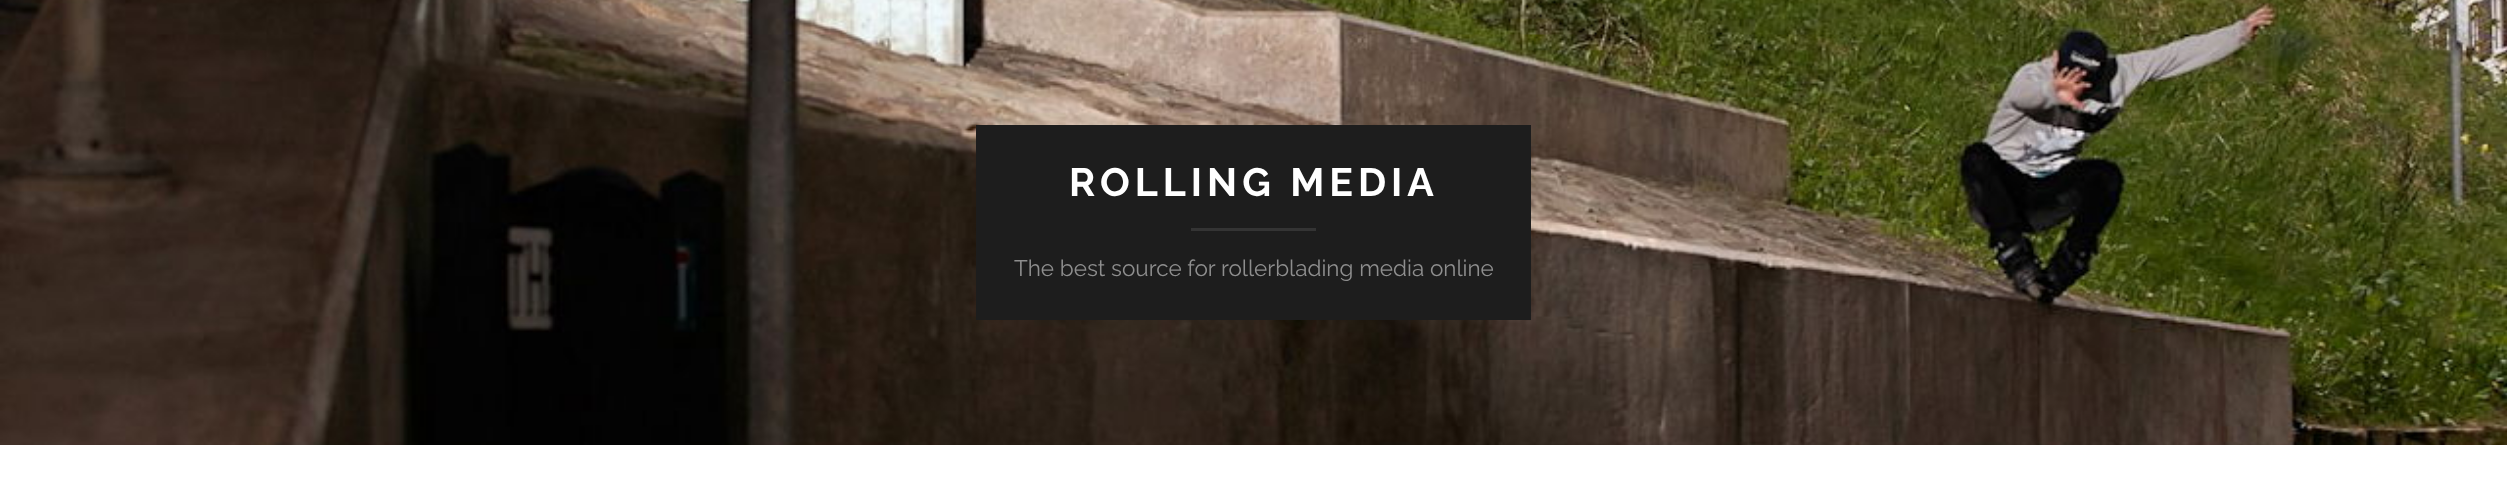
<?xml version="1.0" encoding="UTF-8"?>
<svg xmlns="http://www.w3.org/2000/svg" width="2507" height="486">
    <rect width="100%" height="100%" fill="#FFFFFF"/>
    <image x="0" y="0" width="2507" height="445" href="img_01.png"/>
    <rect x="976" y="125" width="555" height="195" fill="#1D1D1D"/>
    <text x="1069" y="196" font-family="Raleway" font-size="39.4" font-weight="100" letter-spacing="5" fill="#FFFFFF">ROLLING MEDIA</text>
    <rect x="1191" y="228" width="125" height="3" fill="#343434"/>
    <text x="1014" y="276" font-family="'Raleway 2'" font-size="22.5" font-weight="100" fill="#8E8E8E">The best source for rollerblading media online</text>
</svg>
